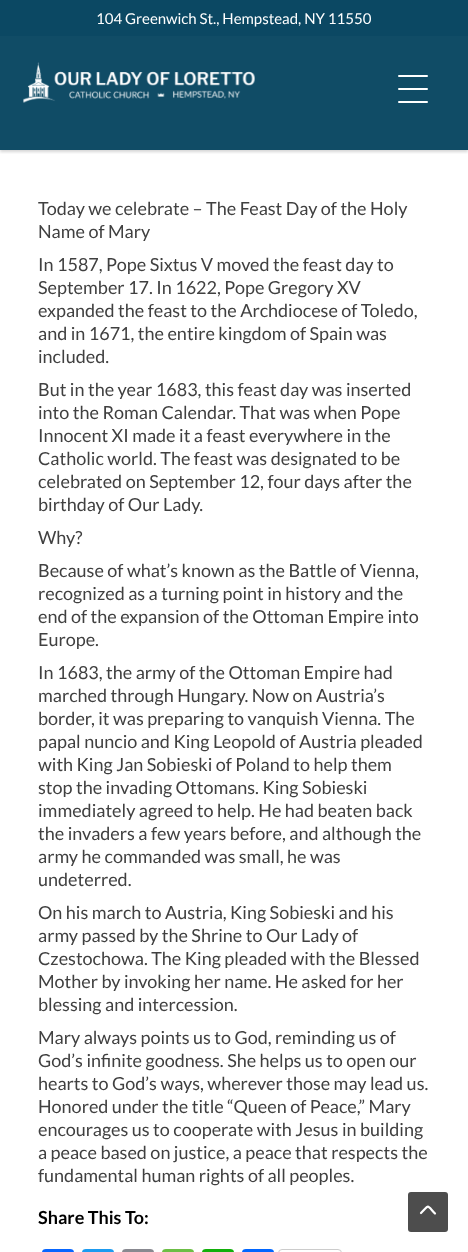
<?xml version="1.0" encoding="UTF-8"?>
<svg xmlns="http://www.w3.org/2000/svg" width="468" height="1252">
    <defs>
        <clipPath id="clip1"><rect x="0" y="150" width="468" height="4"/></clipPath>
        <filter id="blur1" x="-50%" y="-200%" width="200%" height="500%"><feGaussianBlur stdDeviation="1.5"/></filter>
    </defs>
    <rect width="100%" height="100%" fill="#FFFFFF"/>
    <g clip-path="url(#clip1)">
        <rect x="0" y="2" width="468" height="150" fill="#000000" fill-opacity="0.16" filter="url(#blur1)"/>
    </g>
    <rect x="0" y="36" width="468" height="114" fill="#0B4863" fill-opacity="0.98"/>
    <rect x="0" y="0" width="468" height="36" fill="#0B4863"/>
    <text x="96" y="24" font-family="Lato" font-size="15" fill="#FFFFFF">104 Greenwich St., Hempstead, NY 11550</text>
    <image x="23" y="62" width="232" height="41" href="img_01.png"/>
    <rect x="398" y="75" width="30" height="2" rx="1" fill="#FFFFFF"/>
    <rect x="398" y="88" width="30" height="2" rx="1" fill="#FFFFFF"/>
    <rect x="398" y="101" width="30" height="2" rx="1" fill="#FFFFFF"/>
    <text font-family="Lato" font-size="18" fill="#404040">
        <tspan x="38" y="215">Today we celebrate – The Feast Day of the Holy</tspan>
        <tspan x="38" y="238">Name of Mary</tspan>
        <tspan x="38" y="271">In 1587, Pope Sixtus V moved the feast day to</tspan>
        <tspan x="38" y="294">September 17. In 1622, Pope Gregory XV</tspan>
        <tspan x="38" y="317">expanded the feast to the Archdiocese of Toledo,</tspan>
        <tspan x="38" y="340">and in 1671, the entire kingdom of Spain was</tspan>
        <tspan x="38" y="363">included.</tspan>
        <tspan x="38" y="396">But in the year 1683, this feast day was inserted</tspan>
        <tspan x="38" y="419">into the Roman Calendar. That was when Pope</tspan>
        <tspan x="38" y="442">Innocent XI made it a feast everywhere in the</tspan>
        <tspan x="38" y="465">Catholic world. The feast was designated to be</tspan>
        <tspan x="38" y="488">celebrated on September 12, four days after the</tspan>
        <tspan x="38" y="511">birthday of Our Lady.</tspan>
        <tspan x="38" y="544">Why?</tspan>
        <tspan x="38" y="577">Because of what’s known as the Battle of Vienna,</tspan>
        <tspan x="38" y="600">recognized as a turning point in history and the</tspan>
        <tspan x="38" y="623">end of the expansion of the Ottoman Empire into</tspan>
        <tspan x="38" y="646">Europe.</tspan>
        <tspan x="38" y="679">In 1683, the army of the Ottoman Empire had</tspan>
        <tspan x="38" y="702">marched through Hungary. Now on Austria’s</tspan>
        <tspan x="38" y="725">border, it was preparing to vanquish Vienna. The</tspan>
        <tspan x="38" y="748">papal nuncio and King Leopold of Austria pleaded</tspan>
        <tspan x="38" y="771">with King Jan Sobieski of Poland to help them</tspan>
        <tspan x="38" y="794">stop the invading Ottomans. King Sobieski</tspan>
        <tspan x="38" y="817">immediately agreed to help. He had beaten back</tspan>
        <tspan x="38" y="840">the invaders a few years before, and although the</tspan>
        <tspan x="38" y="863">army he commanded was small, he was</tspan>
        <tspan x="38" y="886">undeterred.</tspan>
        <tspan x="38" y="919">On his march to Austria, King Sobieski and his</tspan>
        <tspan x="38" y="942">army passed by the Shrine to Our Lady of</tspan>
        <tspan x="38" y="965">Czestochowa. The King pleaded with the Blessed</tspan>
        <tspan x="38" y="988">Mother by invoking her name. He asked for her</tspan>
        <tspan x="38" y="1011">blessing and intercession.</tspan>
        <tspan x="38" y="1044">Mary always points us to God, reminding us of</tspan>
        <tspan x="38" y="1067">God’s infinite goodness. She helps us to open our</tspan>
        <tspan x="38" y="1090">hearts to God’s ways, wherever those may lead us.</tspan>
        <tspan x="38" y="1113">Honored under the title “Queen of Peace,” Mary</tspan>
        <tspan x="38" y="1136">encourages us to cooperate with Jesus in building</tspan>
        <tspan x="38" y="1159">a peace based on justice, a peace that respects the</tspan>
        <tspan x="38" y="1182">fundamental human rights of all peoples.</tspan>
    </text>
    <text x="38" y="1224" font-family="Lato" font-size="18" font-weight="700" fill="#000000">Share This To:</text>
    <rect x="42" y="1249" width="32" height="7" rx="4" fill="#0866FF"/>
    <rect x="82" y="1249" width="32" height="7" rx="4" fill="#1D9BF0"/>
    <rect x="122" y="1249" width="32" height="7" rx="4" fill="#888990"/>
    <rect x="162" y="1249" width="32" height="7" rx="4" fill="#6CBE45"/>
    <rect x="202" y="1249" width="32" height="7" rx="4" fill="#12AF0A"/>
    <rect x="242" y="1249" width="32" height="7" rx="4" fill="#0166FF"/>
    <rect x="278.5" y="1249.5" width="63" height="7" rx="3.5" fill="none" stroke="#CCCCCC"/>
    <rect x="408" y="1192" width="40" height="40" rx="3" fill="#4D4D4D"/>
    <path d="M 435 1213.5 C 426.5 1204.5 429.5 1204.5 421 1213" fill="none" stroke="#FFFFFF" stroke-width="2.2" stroke-linecap="round" stroke-linejoin="bevel"/>
</svg>
